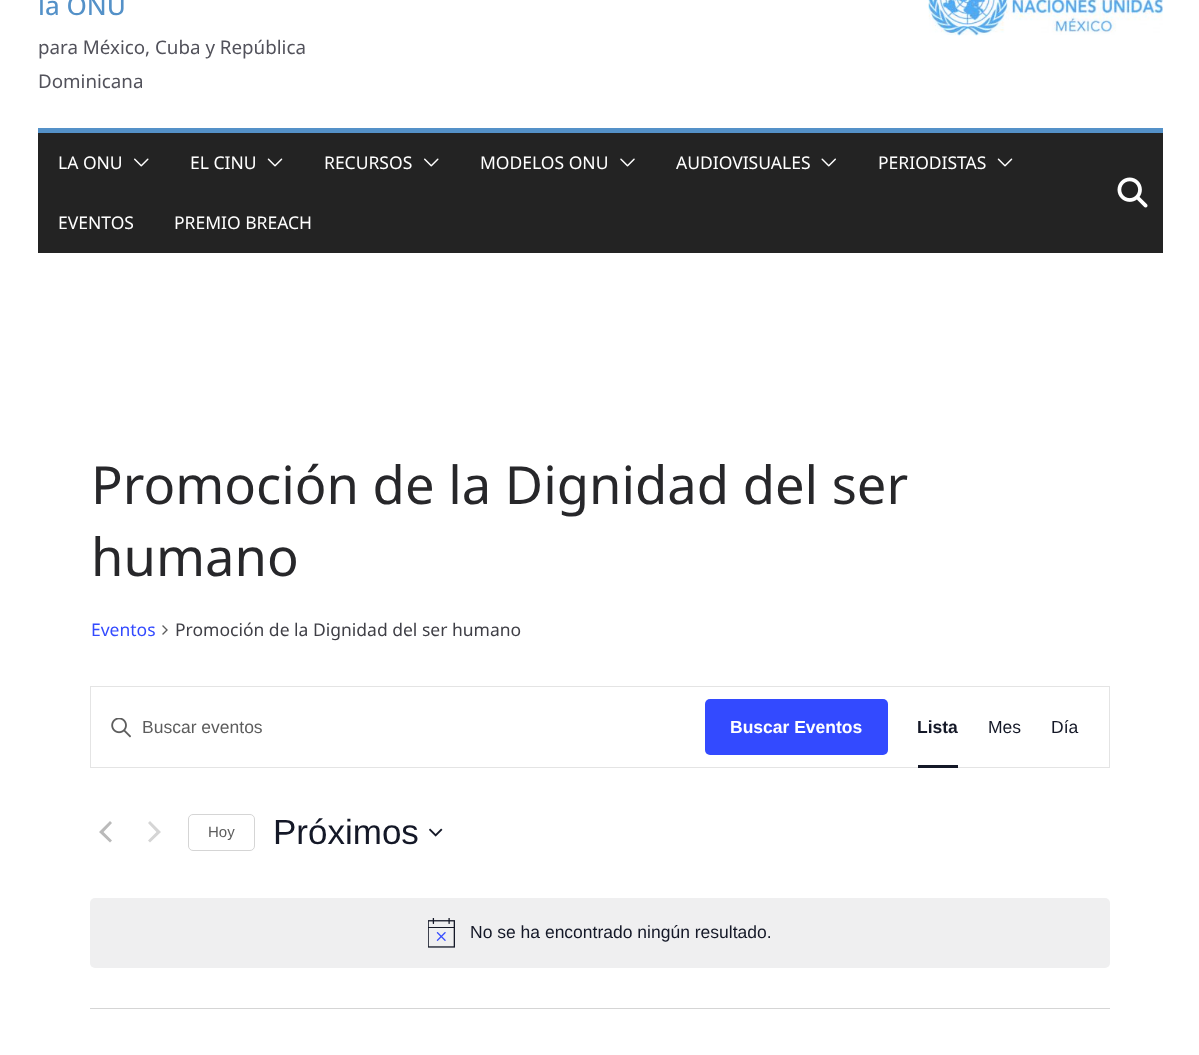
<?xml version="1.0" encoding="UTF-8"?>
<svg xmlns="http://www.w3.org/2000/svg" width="1199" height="1055">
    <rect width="100%" height="100%" fill="#FFFFFF"/>
    <text x="38" y="15" font-family="Open Sans" font-size="26" font-weight="500" fill="#5491C8">la ONU</text>
    <text font-family="Noto Sans" font-size="18.75" fill="#52525B">
        <tspan x="38" y="54">para México, Cuba y República</tspan>
        <tspan x="38" y="88">Dominicana</tspan>
    </text>
    <image x="928" y="0" width="235" height="36" href="img_01.png"/>
    <rect x="38" y="133" width="1125" height="120" fill="#232323"/>
    <rect x="38" y="128" width="1125" height="5" fill="#5491C8"/>
    <text x="58" y="169" font-family="Noto Sans" font-size="17.5" fill="#FFFFFF">LA ONU</text>
    <image x="134" y="158" width="15" height="9" href="img_02.png"/>
    <text x="190" y="169" font-family="Noto Sans" font-size="17.5" fill="#FFFFFF">EL CINU</text>
    <image x="267" y="158" width="16" height="9" href="img_03.png"/>
    <text x="324" y="169" font-family="Noto Sans" font-size="17.5" fill="#FFFFFF">RECURSOS</text>
    <image x="424" y="158" width="15" height="9" href="img_02.png"/>
    <text x="480" y="169" font-family="Noto Sans" font-size="17.5" fill="#FFFFFF">MODELOS ONU</text>
    <image x="620" y="158" width="15" height="9" href="img_04.png"/>
    <text x="676" y="169" font-family="Noto Sans" font-size="17.5" fill="#FFFFFF">AUDIOVISUALES</text>
    <image x="821" y="158" width="15" height="9" href="img_05.png"/>
    <text x="878" y="169" font-family="Noto Sans" font-size="17.5" fill="#FFFFFF">PERIODISTAS</text>
    <image x="997" y="158" width="16" height="9" href="img_03.png"/>
    <text x="58" y="229" font-family="Noto Sans" font-size="17.5" fill="#FFFFFF">EVENTOS</text>
    <text x="174" y="229" font-family="Noto Sans" font-size="17.5" fill="#FFFFFF">PREMIO BREACH</text>
    <image x="1117" y="177" width="31" height="31" href="img_06.png"/>
    <text font-family="Noto Sans" font-size="52.5" fill="#27272A">
        <tspan x="91" y="504">Promoción de la Dignidad del ser</tspan>
        <tspan x="91" y="576">humano</tspan>
    </text>
    <text x="91" y="636" font-family="Noto Sans" font-size="17.5" fill="#334AFF">Eventos</text>
    <image x="162" y="625" width="6" height="10" href="img_07.png"/>
    <text x="175" y="636" font-family="Noto Sans" font-size="17.5" fill="#3F3F46">Promoción de la Dignidad del ser humano</text>
    <rect x="90.5" y="686.5" width="1019" height="81" fill="none" stroke="#E4E4E4"/>
    <image x="111" y="718" width="20" height="20" href="img_08.png"/>
    <text x="142" y="733" font-family="Liberation Sans" font-size="17.5" fill="#5D5D5D">Buscar eventos</text>
    <rect x="705" y="699" width="183" height="56" rx="5" fill="#334AFF"/>
    <text x="730" y="733" font-family="Liberation Sans" font-size="17.5" font-weight="700" fill="#FFFFFF">Buscar Eventos</text>
    <text x="917" y="733" font-family="Liberation Sans" font-size="17.5" font-weight="700" fill="#141827">Lista</text>
    <rect x="918" y="765" width="40" height="3" fill="#141827"/>
    <text x="988" y="733" font-family="Liberation Sans" font-size="17.5" fill="#141827">Mes</text>
    <text x="1051" y="733" font-family="Liberation Sans" font-size="17.5" fill="#141827">Día</text>
    <path d="M 112 840.5 L 110 842.5 L 99 832 L 110 821 L 112 823 L 103.5 832 Z" fill="#BABABA"/>
    <path d="M 148 823 L 150 821 L 161 832 L 150 842.5 L 148 840.5 L 156.5 832 Z" fill="#D5D5D5"/>
    <rect x="188.5" y="814.5" width="66" height="36" rx="4.5" fill="none" stroke="#D5D5D5"/>
    <text x="208" y="837" font-family="Liberation Sans" font-size="15" fill="#5D5D5D">Hoy</text>
    <text x="273" y="844" font-family="Liberation Sans" font-size="35" fill="#141827">Próximos</text>
    <image x="429" y="828" width="14" height="9" href="img_09.png"/>
    <rect x="90" y="898" width="1020" height="70" rx="5" fill="#EFEFF0"/>
    <image x="428" y="918" width="27" height="30" href="img_10.png"/>
    <text x="470" y="938" font-family="Liberation Sans" font-size="17.5" fill="#141827">No se ha encontrado ningún resultado.</text>
    <rect x="90" y="1008" width="1020" height="1" fill="#D5D5D5"/>
</svg>
